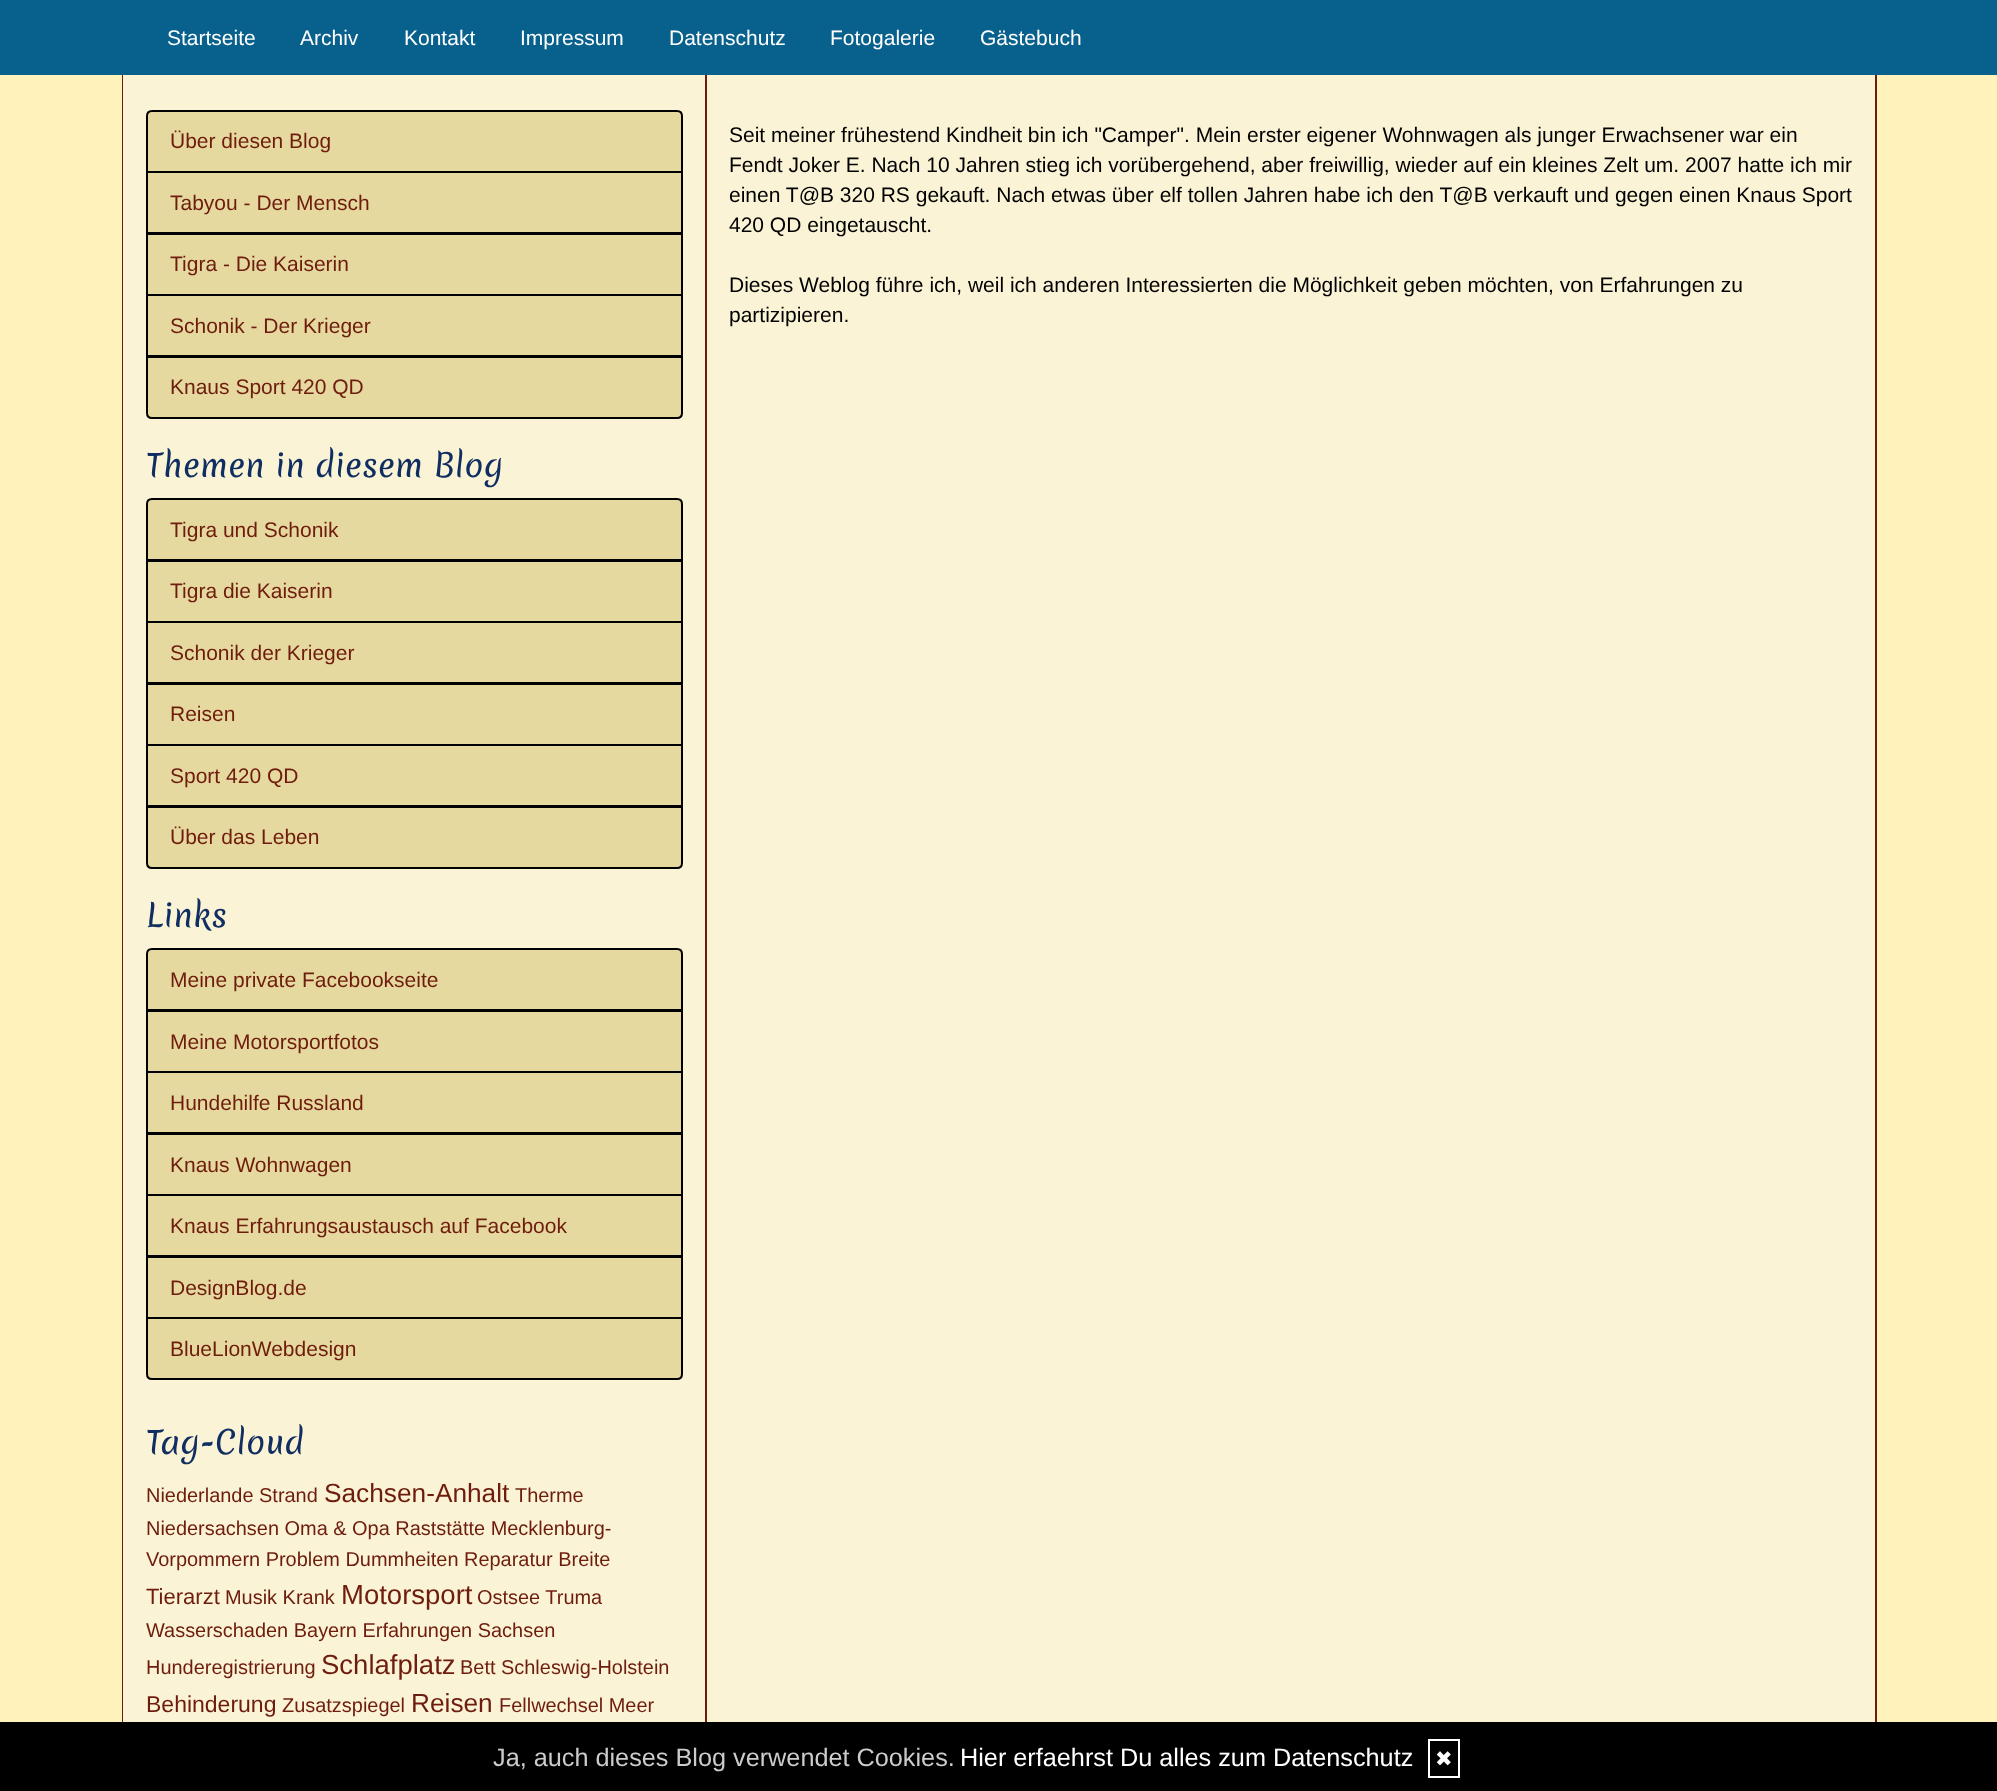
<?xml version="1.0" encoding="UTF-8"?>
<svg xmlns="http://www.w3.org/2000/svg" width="1997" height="1791">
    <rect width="100%" height="100%" fill="#FFF2BA"/>
    <rect x="123" y="30" width="1753" height="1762" fill="none" stroke="#6E1C0D" stroke-width="2"/>
    <rect x="0" y="0" width="1997" height="75" fill="#08608C"/>
    <text x="167" y="45" font-family="Liberation Sans" font-size="21" fill="#FFFFFF">Startseite</text>
    <text x="300" y="45" font-family="Liberation Sans" font-size="21" fill="#FFFFFF">Archiv</text>
    <text x="404" y="45" font-family="Liberation Sans" font-size="21" fill="#FFFFFF">Kontakt</text>
    <text x="520" y="45" font-family="Liberation Sans" font-size="21" fill="#FFFFFF">Impressum</text>
    <text x="669" y="45" font-family="Liberation Sans" font-size="21" fill="#FFFFFF">Datenschutz</text>
    <text x="830" y="45" font-family="Liberation Sans" font-size="21" fill="#FFFFFF">Fotogalerie</text>
    <text x="980" y="45" font-family="Liberation Sans" font-size="21" fill="#FFFFFF">Gästebuch</text>
    <rect x="123" y="75" width="582" height="1647" fill="#FAF3D5"/>
    <rect x="705" y="75" width="2" height="1647" fill="#6E1C0D"/>
    <path d="M 152 111 H 677 C 680 111 682 113 682 116 V 172 H 147 V 116 C 147 113 149 111 152 111 Z" fill="#E6D99F" stroke="#000000" stroke-width="2"/>
    <text x="170" y="148" font-family="Liberation Sans" font-size="21" fill="#6E1C0D">Über diesen Blog</text>
    <rect x="147" y="172" width="535" height="61" fill="#E6D99F" stroke="#000000" stroke-width="2"/>
    <text x="170" y="210" font-family="Liberation Sans" font-size="21" fill="#6E1C0D">Tabyou - Der Mensch</text>
    <rect x="147" y="234" width="535" height="61" fill="#E6D99F" stroke="#000000" stroke-width="2"/>
    <text x="170" y="271" font-family="Liberation Sans" font-size="21" fill="#6E1C0D">Tigra - Die Kaiserin</text>
    <rect x="147" y="295" width="535" height="61" fill="#E6D99F" stroke="#000000" stroke-width="2"/>
    <text x="170" y="333" font-family="Liberation Sans" font-size="21" fill="#6E1C0D">Schonik - Der Krieger</text>
    <path d="M 147 357 H 682 V 413 C 682 416 680 418 677 418 H 152 C 149 418 147 416 147 413 Z" fill="#E6D99F" stroke="#000000" stroke-width="2"/>
    <text x="170" y="394" font-family="Liberation Sans" font-size="21" fill="#6E1C0D">Knaus Sport 420 QD</text>
    <text x="146" y="477" font-family="Merienda" font-size="31.5" fill="#102E61">Themen in diesem Blog</text>
    <path d="M 152 499 H 677 C 680 499 682 501 682 504 V 560 H 147 V 504 C 147 501 149 499 152 499 Z" fill="#E6D99F" stroke="#000000" stroke-width="2"/>
    <text x="170" y="537" font-family="Liberation Sans" font-size="21" fill="#6E1C0D">Tigra und Schonik</text>
    <rect x="147" y="561" width="535" height="61" fill="#E6D99F" stroke="#000000" stroke-width="2"/>
    <text x="170" y="598" font-family="Liberation Sans" font-size="21" fill="#6E1C0D">Tigra die Kaiserin</text>
    <rect x="147" y="622" width="535" height="61" fill="#E6D99F" stroke="#000000" stroke-width="2"/>
    <text x="170" y="660" font-family="Liberation Sans" font-size="21" fill="#6E1C0D">Schonik der Krieger</text>
    <rect x="147" y="684" width="535" height="61" fill="#E6D99F" stroke="#000000" stroke-width="2"/>
    <text x="170" y="721" font-family="Liberation Sans" font-size="21" fill="#6E1C0D">Reisen</text>
    <rect x="147" y="745" width="535" height="61" fill="#E6D99F" stroke="#000000" stroke-width="2"/>
    <text x="170" y="783" font-family="Liberation Sans" font-size="21" fill="#6E1C0D">Sport 420 QD</text>
    <path d="M 147 807 H 682 V 863 C 682 866 680 868 677 868 H 152 C 149 868 147 866 147 863 Z" fill="#E6D99F" stroke="#000000" stroke-width="2"/>
    <text x="170" y="844" font-family="Liberation Sans" font-size="21" fill="#6E1C0D">Über das Leben</text>
    <text x="146" y="927" font-family="Merienda" font-size="31.5" fill="#102E61">Links</text>
    <path d="M 152 949 H 677 C 680 949 682 951 682 954 V 1010 H 147 V 954 C 147 951 149 949 152 949 Z" fill="#E6D99F" stroke="#000000" stroke-width="2"/>
    <text x="170" y="987" font-family="Liberation Sans" font-size="21" fill="#6E1C0D">Meine private Facebookseite</text>
    <rect x="147" y="1011" width="535" height="61" fill="#E6D99F" stroke="#000000" stroke-width="2"/>
    <text x="170" y="1049" font-family="Liberation Sans" font-size="21" fill="#6E1C0D">Meine Motorsportfotos</text>
    <rect x="147" y="1072" width="535" height="61" fill="#E6D99F" stroke="#000000" stroke-width="2"/>
    <text x="170" y="1110" font-family="Liberation Sans" font-size="21" fill="#6E1C0D">Hundehilfe Russland</text>
    <rect x="147" y="1134" width="535" height="61" fill="#E6D99F" stroke="#000000" stroke-width="2"/>
    <text x="170" y="1172" font-family="Liberation Sans" font-size="21" fill="#6E1C0D">Knaus Wohnwagen</text>
    <rect x="147" y="1195" width="535" height="61" fill="#E6D99F" stroke="#000000" stroke-width="2"/>
    <text x="170" y="1233" font-family="Liberation Sans" font-size="21" fill="#6E1C0D">Knaus Erfahrungsaustausch auf Facebook</text>
    <rect x="147" y="1257" width="535" height="61" fill="#E6D99F" stroke="#000000" stroke-width="2"/>
    <text x="170" y="1295" font-family="Liberation Sans" font-size="21" fill="#6E1C0D">DesignBlog.de</text>
    <path d="M 147 1318 H 682 V 1374 C 682 1377 680 1379 677 1379 H 152 C 149 1379 147 1377 147 1374 Z" fill="#E6D99F" stroke="#000000" stroke-width="2"/>
    <text x="170" y="1356" font-family="Liberation Sans" font-size="21" fill="#6E1C0D">BlueLionWebdesign</text>
    <text x="146" y="1454" font-family="Merienda" font-size="31.5" fill="#102E61">Tag-Cloud</text>
    <text x="146" y="1502" font-family="Liberation Sans" font-size="19.95" fill="#6E1C0D">Niederlande Strand</text>
    <text x="324" y="1502" font-family="Liberation Sans" font-size="26.25" fill="#6E1C0D">Sachsen-Anhalt</text>
    <text x="515" y="1502" font-family="Liberation Sans" font-size="19.95" fill="#6E1C0D">Therme</text>
    <text font-family="Liberation Sans" font-size="19.95" fill="#6E1C0D">
        <tspan x="146" y="1535">Niedersachsen Oma &amp; Opa Raststätte Mecklenburg-</tspan>
        <tspan x="146" y="1566">Vorpommern Problem Dummheiten Reparatur Breite</tspan>
    </text>
    <text x="146" y="1604" font-family="Liberation Sans" font-size="22" fill="#6E1C0D">Tierarzt</text>
    <text x="225" y="1604" font-family="Liberation Sans" font-size="19.95" fill="#6E1C0D">Musik Krank</text>
    <text x="341" y="1604" font-family="Liberation Sans" font-size="27.5" fill="#6E1C0D">Motorsport</text>
    <text x="477" y="1604" font-family="Liberation Sans" font-size="19.95" fill="#6E1C0D">Ostsee Truma</text>
    <text font-family="Liberation Sans" font-size="19.95" fill="#6E1C0D">
        <tspan x="146" y="1637">Wasserschaden Bayern Erfahrungen Sachsen</tspan>
        <tspan x="146" y="1674">Hunderegistrierung</tspan>
    </text>
    <text x="321" y="1674" font-family="Liberation Sans" font-size="27.5" fill="#6E1C0D">Schlafplatz</text>
    <text x="460" y="1674" font-family="Liberation Sans" font-size="19.95" fill="#6E1C0D">Bett Schleswig-Holstein</text>
    <text x="146" y="1712" font-family="Liberation Sans" font-size="23" fill="#6E1C0D">Behinderung</text>
    <text x="282" y="1712" font-family="Liberation Sans" font-size="19.95" fill="#6E1C0D">Zusatzspiegel</text>
    <text x="411" y="1712" font-family="Liberation Sans" font-size="26.25" fill="#6E1C0D">Reisen</text>
    <text x="499" y="1712" font-family="Liberation Sans" font-size="19.95" fill="#6E1C0D">Fellwechsel Meer</text>
    <rect x="707" y="75" width="1168" height="1647" fill="#FAF3D5"/>
    <text font-family="Liberation Sans" font-size="21" fill="#000000">
        <tspan x="729" y="142">Seit meiner frühestend Kindheit bin ich "Camper". Mein erster eigener Wohnwagen als junger Erwachsener war ein</tspan>
        <tspan x="729" y="172">Fendt Joker E. Nach 10 Jahren stieg ich vorübergehend, aber freiwillig, wieder auf ein kleines Zelt um. 2007 hatte ich mir</tspan>
        <tspan x="729" y="202">einen T@B 320 RS gekauft. Nach etwas über elf tollen Jahren habe ich den T@B verkauft und gegen einen Knaus Sport</tspan>
        <tspan x="729" y="232">420 QD eingetauscht.</tspan>
    </text>
    <text font-family="Liberation Sans" font-size="21" fill="#000000">
        <tspan x="729" y="292">Dieses Weblog führe ich, weil ich anderen Interessierten die Möglichkeit geben möchten, von Erfahrungen zu</tspan>
        <tspan x="729" y="322">partizipieren.</tspan>
    </text>
    <rect x="1" y="1724" width="1996" height="67" fill="#000000"/>
    <rect x="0" y="1723" width="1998" height="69" fill="none" stroke="#000000" stroke-width="2"/>
    <text x="493" y="1766" font-family="Liberation Sans" font-size="25.25" fill="#CCCCCC">Ja, auch dieses Blog verwendet Cookies.</text>
    <text x="960" y="1766" font-family="Liberation Sans" font-size="25.25" fill="#FFFFFF">Hier erfaehrst Du alles zum Datenschutz</text>
    <rect x="1429" y="1740" width="30" height="37" fill="none" stroke="#FFFFFF" stroke-width="2"/>
    <text x="1435" y="1766" font-family="DejaVu Sans" font-size="21" fill="#FFFFFF">✖</text>
</svg>
